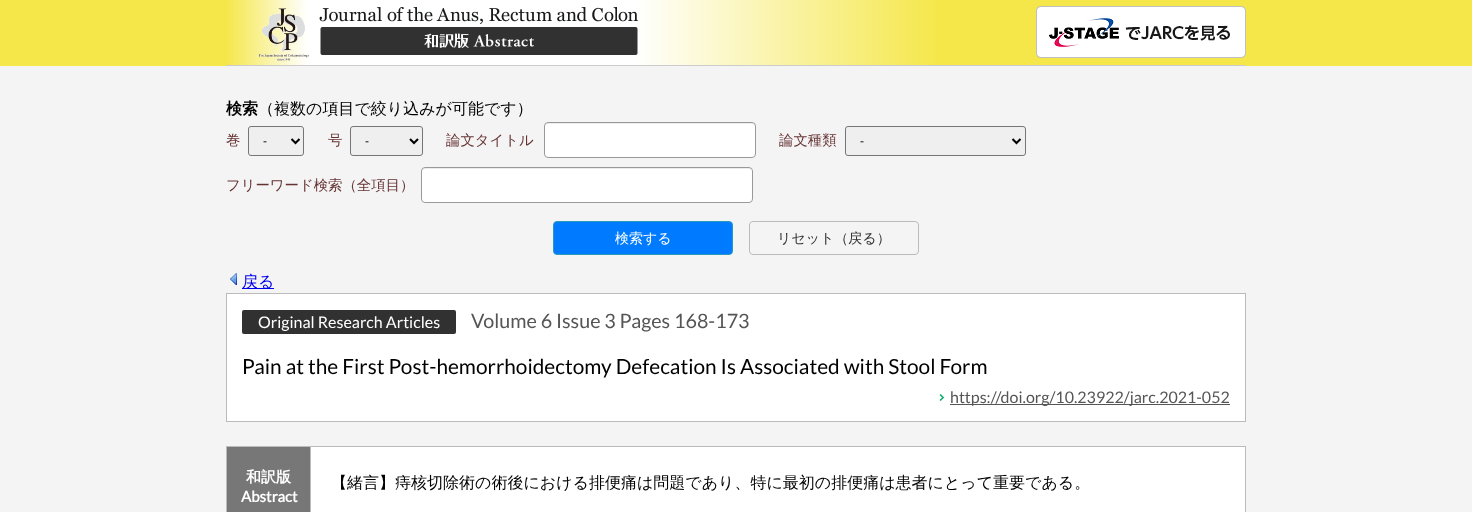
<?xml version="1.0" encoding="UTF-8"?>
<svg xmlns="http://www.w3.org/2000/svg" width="1472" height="512">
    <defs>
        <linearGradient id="g1" gradientUnits="userSpaceOnUse" x1="226" y1="33" x2="1246" y2="33"><stop offset="0" stop-color="#F5E74A"/><stop offset="0.08" stop-color="#FFFFFF"/><stop offset="0.4" stop-color="#FFFFFF"/><stop offset="0.7" stop-color="#F5E74A"/></linearGradient>
    </defs>
    <rect width="100%" height="100%" fill="#F4F4F4"/>
    <rect x="0" y="0" width="1472" height="66" fill="#F5E74A"/>
    <rect x="227" y="0" width="709" height="65" fill="url(#g1)"/>
    <rect x="226" y="65" width="1020" height="1" fill="#CCCCCC"/>
    <image x="258" y="8" width="51" height="53" href="img_01.png"/>
    <image x="319" y="7" width="319" height="48" href="img_02.png"/>
    <image x="1036" y="6" width="210" height="52" href="img_03.png"/>
    <text x="226" y="114" font-family="WenQuanYi Zen Hei" font-size="16" font-weight="700" fill="#000000">検索</text>
    <text x="258" y="114" font-family="WenQuanYi Zen Hei" font-size="16" font-weight="500" fill="#000000">（複数の項目で絞り込みが可能です）</text>
    <text x="226" y="145" font-family="WenQuanYi Zen Hei" font-size="14.4" font-weight="500" fill="#663333">巻</text>
    <rect x="248.5" y="126.5" width="55" height="29" rx="2.5" fill="#EFEFEF" stroke="#767676"/>
    <path d="M 291.5 139 L 295.5 143 L 299.5 139" fill="none" stroke="#000000" stroke-width="2"/>
    <text x="263" y="145" font-family="Liberation Sans" font-size="12" fill="#000000">-</text>
    <text x="328" y="145" font-family="WenQuanYi Zen Hei" font-size="14.4" font-weight="500" fill="#663333">号</text>
    <rect x="350.5" y="126.5" width="72" height="29" rx="2.5" fill="#EFEFEF" stroke="#767676"/>
    <path d="M 410 139 L 414 143 L 418 139" fill="none" stroke="#000000" stroke-width="2"/>
    <text x="365" y="145" font-family="Liberation Sans" font-size="12" fill="#000000">-</text>
    <text x="446" y="145" font-family="WenQuanYi Zen Hei" font-size="14.4" font-weight="500" fill="#663333">論文タイトル</text>
    <rect x="544" y="122" width="212" height="36" rx="4" fill="#FFFFFF"/>
    <path d="M 548 124 H 752 C 754 124 755 125 755 127 V 126 C 755 124 754 123 752 123 H 548 C 546 123 545 124 545 126 V 127 C 545 125 546 124 548 124 Z" fill="#ECECEC"/>
    <rect x="544.5" y="122.5" width="211" height="35" rx="3.5" fill="none" stroke="#999999"/>
    <text x="779" y="145" font-family="WenQuanYi Zen Hei" font-size="14.4" font-weight="500" fill="#663333">論文種類</text>
    <rect x="845.5" y="126.5" width="180" height="29" rx="2.5" fill="#EFEFEF" stroke="#767676"/>
    <path d="M 1012.5 139 L 1016.5 143 L 1020.5 139" fill="none" stroke="#000000" stroke-width="2"/>
    <text x="860" y="145" font-family="Liberation Sans" font-size="12" fill="#000000">-</text>
    <text x="226" y="190" font-family="WenQuanYi Zen Hei" font-size="14.4" font-weight="500" fill="#663333">フリーワード検索（全項目）</text>
    <rect x="421" y="167" width="332" height="36" rx="4" fill="#FFFFFF"/>
    <path d="M 425 169 H 749 C 751 169 752 170 752 172 C 752 170 751 168 749 168 H 425 C 423 168 422 170 422 172 C 422 170 423 169 425 169 Z" fill="#ECECEC"/>
    <rect x="421.5" y="167.5" width="331" height="35" rx="3.5" fill="none" stroke="#999999"/>
    <rect x="553.5" y="221.5" width="179" height="33" rx="3.5" fill="#007BFF" stroke="#269ABC"/>
    <text x="615" y="243" font-family="WenQuanYi Zen Hei" font-size="14" font-weight="500" fill="#FFFFFF">検索する</text>
    <rect x="749.5" y="221.5" width="169" height="33" rx="3.5" fill="none" stroke="#BBBBBB"/>
    <text x="777" y="243" font-family="WenQuanYi Zen Hei" font-size="14" font-weight="500" fill="#333333">リセット（戻る）</text>
    <image x="230" y="273" width="7" height="12" href="img_04.png"/>
    <rect x="242" y="288" width="32" height="1" fill="#0000EE"/>
    <text x="242" y="287" font-family="WenQuanYi Zen Hei" font-size="16" font-weight="500" fill="#0000EE">戻る</text>
    <rect x="226.5" y="293.5" width="1019" height="128" fill="#FFFFFF" stroke="#BBBBBB"/>
    <rect x="242" y="310" width="214" height="24" rx="2" fill="#313131"/>
    <text x="258" y="328" font-family="Lato" font-size="16" fill="#FFFFFF">Original Research Articles</text>
    <text x="471" y="328" font-family="Lato" font-size="19.75" fill="#555555">Volume 6 Issue 3 Pages 168-173</text>
    <text x="242" y="374" font-family="Lato" font-size="20.8" fill="#000000">Pain at the First Post-hemorrhoidectomy Defecation Is Associated with Stool Form</text>
    <image x="939" y="394" width="6" height="7" href="img_05.png"/>
    <rect x="950" y="404" width="280" height="1" fill="#555555"/>
    <text x="950" y="403" font-family="Lato" font-size="16" fill="#555555">https://doi.org/10.23922/jarc.2021-052</text>
    <rect x="1245" y="446" width="1" height="66" fill="#BBBBBB"/>
    <rect x="227" y="447" width="83" height="65" fill="#777777"/>
    <rect x="310" y="446" width="936" height="1" fill="#BBBBBB"/>
    <rect x="310" y="446" width="1" height="66" fill="#BBBBBB"/>
    <rect x="226" y="446" width="85" height="1" fill="#BBBBBB"/>
    <rect x="226" y="446" width="1" height="66" fill="#BBBBBB"/>
    <text x="246" y="482" font-family="WenQuanYi Zen Hei" font-size="15" font-weight="700" fill="#FFFFFF">和訳版</text>
    <text x="241" y="502" font-family="Lato" font-size="15" font-weight="700" fill="#FFFFFF">Abstract</text>
    <rect x="311" y="447" width="934" height="65" fill="#FFFFFF"/>
    <text x="331" y="488" font-family="WenQuanYi Zen Hei" font-size="16" font-weight="500" fill="#000000">【緒言】痔核切除術の術後における排便痛は問題であり、特に最初の排便痛は患者にとって重要である。</text>
</svg>
